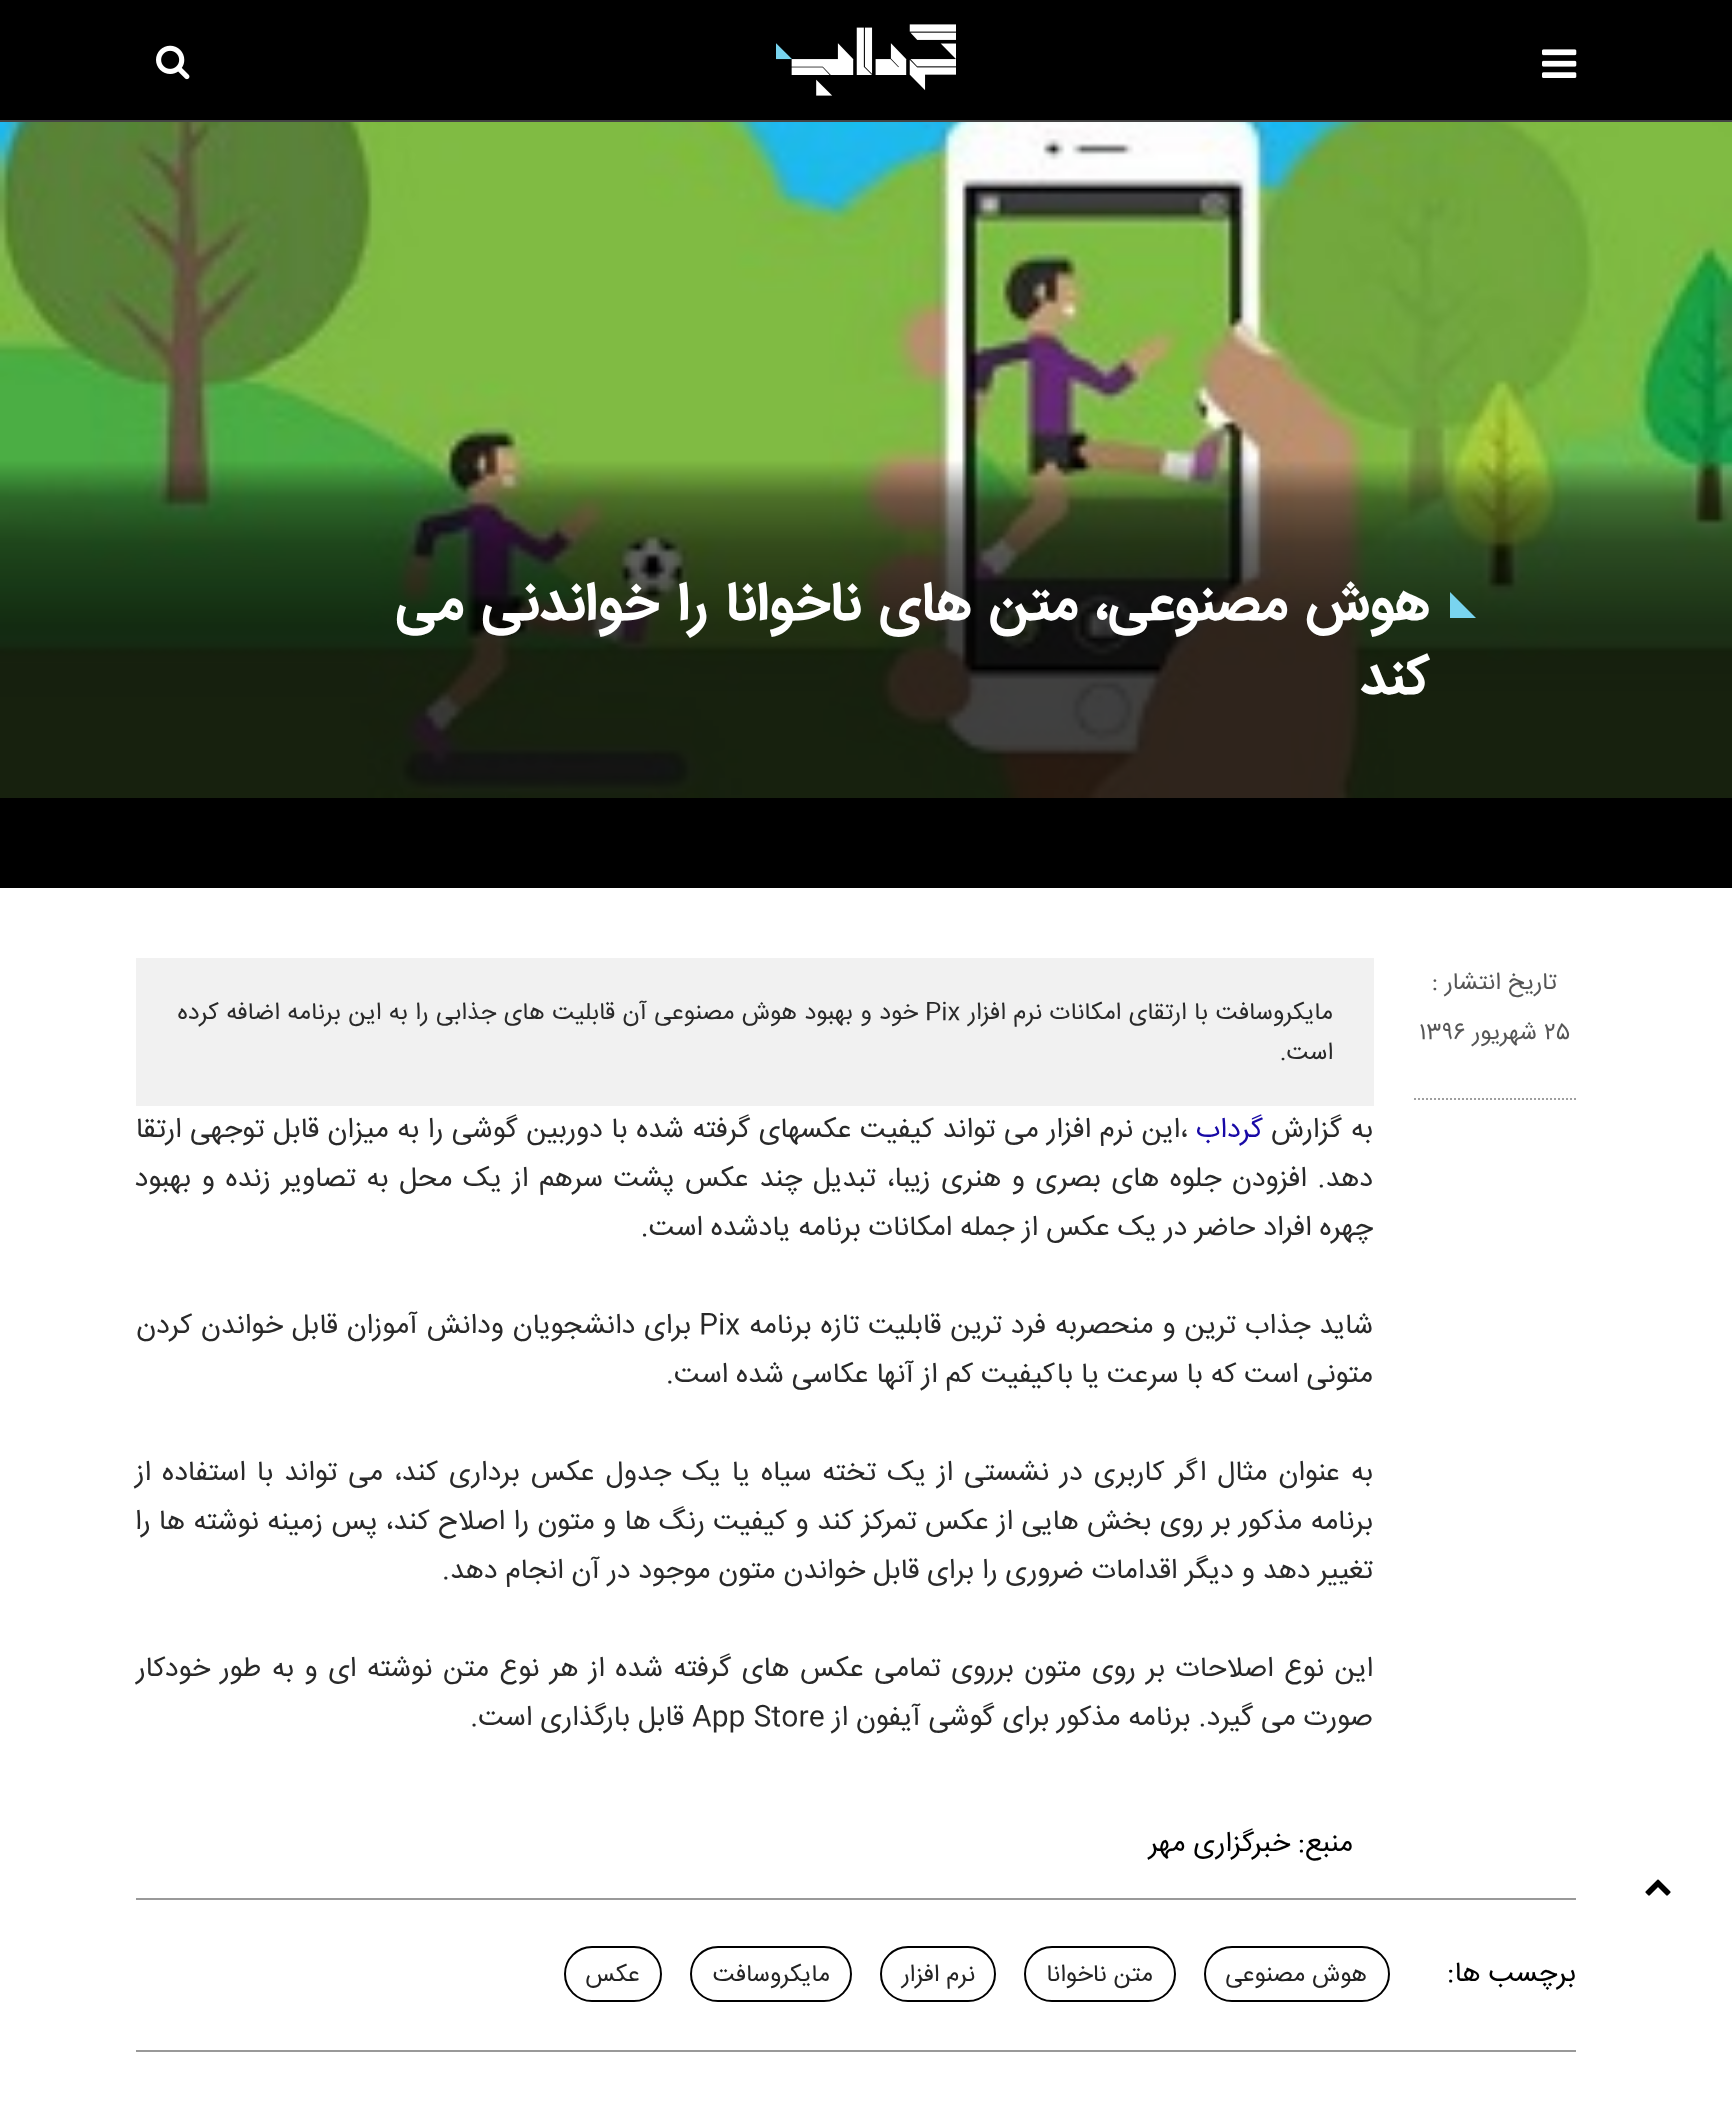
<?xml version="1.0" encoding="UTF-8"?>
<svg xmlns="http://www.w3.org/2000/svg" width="1732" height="2105">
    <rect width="100%" height="100%" fill="#FFFFFF"/>
    <rect x="0" y="798" width="1732" height="90" fill="#000000"/>
    <rect x="0" y="0" width="1732" height="120" fill="#000000"/>
    <rect x="0" y="120" width="1732" height="2" fill="#444444"/>
    <image x="1542" y="49" width="35" height="29" href="img_01.png"/>
    <image x="776" y="24" width="180" height="72" href="img_02.png"/>
    <image x="156" y="45" width="34" height="35" href="img_03.png"/>
    <image x="0" y="122" width="1732" height="676" href="img_04.png"/>
    <path d="M 1476 618 H 1450 V 592 Z" fill="#79D4EF"/>
    <text font-family="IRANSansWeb" font-size="54" font-weight="700" direction="rtl" fill="#FFFFFF">
        <tspan x="1430" y="619" word-spacing="5.75">هوش مصنوعی، متن های ناخوانا را خواندنی می</tspan>
        <tspan x="1430" y="693">کند</tspan>
    </text>
    <image x="1645" y="1879" width="26" height="17" href="img_05.png"/>
    <path d="M 1414 1099 H 1576" fill="none" stroke="#9F9F9F" stroke-width="2" stroke-dasharray="2 2"/>
    <text x="1557" y="989" font-family="IRANSansWeb" font-size="24" direction="rtl" fill="#565656">تاریخ انتشار :</text>
    <text x="1544" y="1039" font-family="IRANSansWeb" font-size="24" fill="#565656">۲۵</text>
    <text x="1537" y="1039" font-family="IRANSansWeb" font-size="24" direction="rtl" fill="#565656">شهريور</text>
    <text x="1419" y="1039" font-family="IRANSansWeb" font-size="24" fill="#565656">۱۳۹۶</text>
    <rect x="136" y="958" width="1238" height="148" fill="#F1F1F1"/>
    <text x="1333" y="1019" word-spacing="0.75" font-family="IRANSansWeb" font-size="24" direction="rtl" fill="#292929">مایکروسافت با ارتقای امکانات نرم افزار</text>
    <text x="925" y="1019" font-family="IRANSansWeb" font-size="24" fill="#292929">Pix</text>
    <text x="918" y="1019" word-spacing="0.75" font-family="IRANSansWeb" font-size="24" direction="rtl" fill="#292929">خود و بهبود هوش مصنوعی آن قابلیت های جذابی را به این برنامه اضافه کرده</text>
    <text x="1333" y="1059" font-family="IRANSansWeb" font-size="24" direction="rtl" fill="#292929">است.</text>
    <text x="1373" y="1137" word-spacing="1" font-family="IRANSansWeb" font-size="28" direction="rtl" fill="#292929">به گزارش</text>
    <text x="1263" y="1137" font-family="IRANSansWeb" font-size="28" direction="rtl" fill="#1809A6">گرداب</text>
    <text x="1180" y="1137" font-family="IRANSansWeb" font-size="28" fill="#292929">،</text>
    <text x="1180" y="1137" word-spacing="0.6" font-family="IRANSansWeb" font-size="28" direction="rtl" fill="#292929">این نرم افزار می تواند کیفیت عکسهای گرفته شده با دوربین گوشی را به میزان قابل توجهی ارتقا</text>
    <text font-family="IRANSansWeb" font-size="28" direction="rtl" fill="#292929">
        <tspan x="1373" y="1186" word-spacing="2.75">دهد. افزودن جلوه های بصری و هنری زیبا، تبدیل چند عکس پشت سرهم از یک محل به تصاویر زنده و بهبود</tspan>
        <tspan x="1373" y="1235">چهره افراد حاضر در یک عکس از جمله امکانات برنامه یادشده است.</tspan>
    </text>
    <text x="1373" y="1333" word-spacing="1" font-family="IRANSansWeb" font-size="28" direction="rtl" fill="#292929">شاید جذاب ترین و منحصربه فرد ترین قابلیت تازه برنامه</text>
    <text x="699" y="1333" font-family="IRANSansWeb" font-size="28" fill="#292929">Pix</text>
    <text x="691" y="1333" word-spacing="1" font-family="IRANSansWeb" font-size="28" direction="rtl" fill="#292929">برای دانشجویان ودانش آموزان قابل خواندن کردن</text>
    <text x="1373" y="1382" font-family="IRANSansWeb" font-size="28" direction="rtl" fill="#292929">متونی است که با سرعت یا باکیفیت کم از آنها عکاسی شده است.</text>
    <text font-family="IRANSansWeb" font-size="28" direction="rtl" fill="#292929">
        <tspan x="1373" y="1480" word-spacing="3.1">به عنوان مثال اگر کاربری در نشستی از یک تخته سیاه یا یک جدول عکس برداری کند، می تواند با استفاده از</tspan>
        <tspan x="1373" y="1529" word-spacing="0.5">برنامه مذکور بر روی بخش هایی از عکس تمرکز کند و کیفیت رنگ ها و متون را اصلاح کند، پس زمینه نوشته ها را</tspan>
        <tspan x="1373" y="1578">تغییر دهد و دیگر اقدامات ضروری را برای قابل خواندن متون موجود در آن انجام دهد.</tspan>
    </text>
    <text font-family="IRANSansWeb" font-size="28" direction="rtl" fill="#292929">
        <tspan x="1373" y="1676" word-spacing="2.6">این نوع اصلاحات بر روی متون برروی تمامی عکس های گرفته شده از هر نوع متن نوشته ای و به طور خودکار</tspan>
        <tspan x="1373" y="1725">صورت می گیرد. برنامه مذکور برای گوشی آیفون از</tspan>
    </text>
    <text x="692" y="1725" font-family="IRANSansWeb" font-size="28" fill="#292929">App Store</text>
    <text x="684" y="1725" font-family="IRANSansWeb" font-size="28" direction="rtl" fill="#292929">قابل بارگذاری است.</text>
    <text x="1353" y="1851" font-family="IRANSansWeb" font-size="28" direction="rtl" fill="#000000">منبع:</text>
    <text x="1290" y="1851" font-family="IRANSansWeb" font-size="28" direction="rtl" fill="#000000">خبرگزاری مهر</text>
    <rect x="136" y="1898" width="1440" height="2" fill="#999999"/>
    <text x="1576" y="1981" font-family="IRANSansWeb" font-size="28" direction="rtl" fill="#000000">برچسب ها:</text>
    <rect x="1205" y="1947" width="184" height="54" rx="27" fill="none" stroke="#000000" stroke-width="2"/>
    <text x="1367" y="1981" font-family="IRANSansWeb" font-size="24" direction="rtl" fill="#232323">هوش مصنوعی</text>
    <rect x="1025" y="1947" width="150" height="54" rx="27" fill="none" stroke="#000000" stroke-width="2"/>
    <text x="1153" y="1981" font-family="IRANSansWeb" font-size="24" direction="rtl" fill="#232323">متن ناخوانا</text>
    <rect x="881" y="1947" width="114" height="54" rx="27" fill="none" stroke="#000000" stroke-width="2"/>
    <text x="975" y="1981" font-family="IRANSansWeb" font-size="24" direction="rtl" fill="#232323">نرم افزار</text>
    <rect x="691" y="1947" width="160" height="54" rx="27" fill="none" stroke="#000000" stroke-width="2"/>
    <text x="830" y="1981" font-family="IRANSansWeb" font-size="24" direction="rtl" fill="#232323">مایکروسافت</text>
    <rect x="565" y="1947" width="96" height="54" rx="27" fill="none" stroke="#000000" stroke-width="2"/>
    <text x="640" y="1981" font-family="IRANSansWeb" font-size="24" direction="rtl" fill="#232323">عکس</text>
    <rect x="136" y="2050" width="1440" height="2" fill="#999999"/>
</svg>
